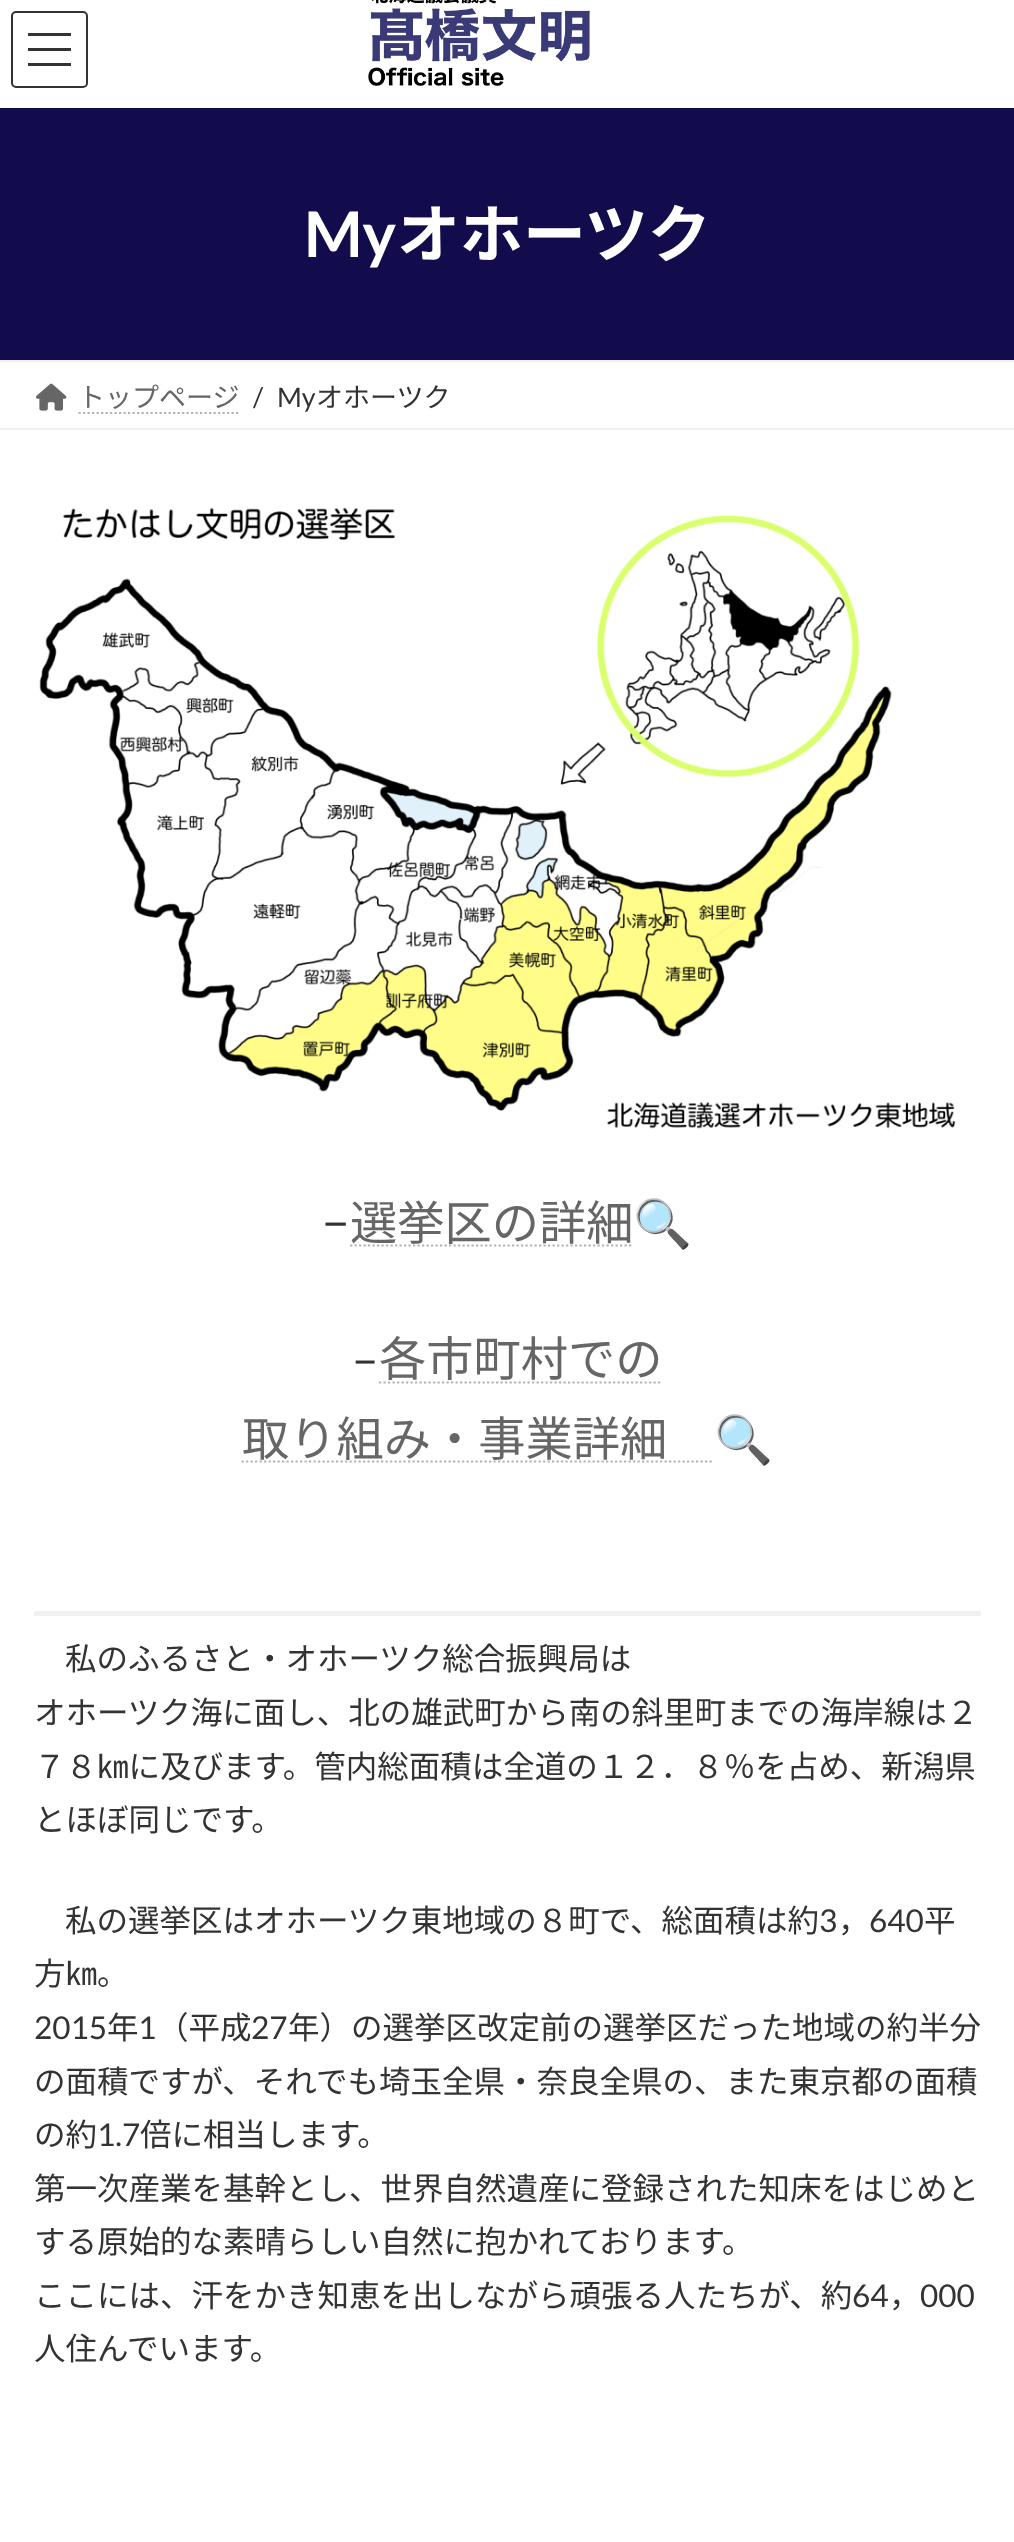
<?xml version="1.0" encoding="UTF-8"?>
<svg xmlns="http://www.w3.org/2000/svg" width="1014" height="2542">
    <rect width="100%" height="100%" fill="#FFFFFF"/>
    <rect x="28" y="33" width="43" height="3" fill="#333333"/>
    <rect x="28" y="48" width="43" height="3" fill="#333333"/>
    <rect x="28" y="63" width="43" height="3" fill="#333333"/>
    <rect x="12" y="12" width="75" height="75" rx="4" fill="none" stroke="#333333" stroke-width="2"/>
    <image x="368" y="0" width="222" height="86" href="img_01.png"/>
    <rect x="0" y="108" width="1014" height="252" fill="#120C4D"/>
    <text x="304" y="257" font-family="Lato" font-size="63" font-weight="700" fill="#FFFFFF">My</text>
    <text x="397" y="257" font-family="Noto Sans JP" font-size="63" font-weight="700" fill="#FFFFFF">オホーツク</text>
    <rect x="0" y="360" width="1014" height="2" fill="#F0F0F0"/>
    <rect x="0" y="428" width="1014" height="2" fill="#F0F0F0"/>
    <image x="36" y="383" width="31" height="28" href="img_02.png"/>
    <text x="78" y="407" font-family="Noto Sans JP" font-size="27" fill="#666666">トップページ</text>
    <path d="M 78.5 413 H 240" fill="none" stroke="#B3B3B3" stroke-width="2.2" stroke-dasharray="2.25 2.25"/>
    <text x="253" y="407" font-family="Lato" font-size="27" fill="#333333">/</text>
    <text x="277" y="407" font-family="Lato" font-size="27" fill="#333333">My</text>
    <text x="316" y="407" font-family="Noto Sans JP" font-size="27" fill="#333333">オホーツク</text>
    <image x="39" y="507" width="917" height="622" href="img_03.png"/>
    <text x="322" y="1240" font-family="Lato" font-size="47.25" fill="#333333">−</text>
    <text x="350" y="1240" font-family="Noto Sans JP" font-size="47.25" fill="#666666">選挙区の詳細</text>
    <path d="M 350 1245.5 H 633.5" fill="none" stroke="#B3B3B3" stroke-width="2.2" stroke-dasharray="2.25 2.25"/>
    <text x="633" y="1240" font-family="Noto Color Emoji" font-size="47.25" fill="#333333">🔍</text>
    <text x="352" y="1376" font-family="Lato" font-size="47.25" fill="#333333">–</text>
    <text x="379" y="1376" font-family="Noto Sans JP" font-size="47.25" fill="#666666">各市町村での</text>
    <path d="M 379 1382.5 H 662.5" fill="none" stroke="#B3B3B3" stroke-width="2.2" stroke-dasharray="2.25 2.25"/>
    <text x="242" y="1456" font-family="Noto Sans JP" font-size="47.25" fill="#666666">取り組み・事業詳細</text>
    <path d="M 241.5 1461.5 H 714" fill="none" stroke="#B3B3B3" stroke-width="2.2" stroke-dasharray="2.25 2.25"/>
    <text x="714" y="1456" font-family="Noto Color Emoji" font-size="47.25" fill="#333333">🔍</text>
    <rect x="34" y="1611" width="947" height="5" fill="#F0F0F0"/>
    <text x="65" y="1670" font-family="Noto Sans JP" font-size="31.5" fill="#333333">私のふるさと・オホーツク総合振興局は</text>
    <text font-family="Noto Sans JP" font-size="31.5" fill="#333333">
        <tspan x="34" y="1724">オホーツク海に面し、北の雄武町から南の斜里町までの海岸線は２</tspan>
        <tspan x="34" y="1778">７８㎞に及びます。管内総面積は全道の１２．８％を占め、新潟県</tspan>
        <tspan x="34" y="1831">とほぼ同じです。</tspan>
    </text>
    <text x="65" y="1932" font-family="Noto Sans JP" font-size="31.5" fill="#333333">私の選挙区はオホーツク東地域の８町で、総面積は約</text>
    <text x="819" y="1932" font-family="Lato" font-size="31.5" fill="#333333">3</text>
    <text x="838" y="1932" font-family="Noto Sans JP" font-size="31.5" fill="#333333">，</text>
    <text x="869" y="1932" font-family="Lato" font-size="31.5" fill="#333333">640</text>
    <text x="924" y="1932" font-family="Noto Sans JP" font-size="31.5" fill="#333333">平</text>
    <text x="34" y="1985" font-family="Noto Sans JP" font-size="31.5" fill="#333333">方㎞。</text>
    <text x="34" y="2039" font-family="Lato" font-size="31.5" fill="#333333">2015</text>
    <text x="107" y="2039" font-family="Noto Sans JP" font-size="31.5" fill="#333333">年</text>
    <text x="138" y="2039" font-family="Lato" font-size="31.5" fill="#333333">1</text>
    <text x="157" y="2039" font-family="Noto Sans JP" font-size="31.5" fill="#333333">（平成</text>
    <text x="251" y="2039" font-family="Lato" font-size="31.5" fill="#333333">27</text>
    <text x="288" y="2039" font-family="Noto Sans JP" font-size="31.5" fill="#333333">年）の選挙区改定前の選挙区だった地域の約半分</text>
    <text font-family="Noto Sans JP" font-size="31.5" fill="#333333">
        <tspan x="34" y="2093">の面積ですが、それでも埼玉全県・奈良全県の、また東京都の面積</tspan>
        <tspan x="34" y="2146">の約</tspan>
    </text>
    <text x="97" y="2146" font-family="Lato" font-size="31.5" fill="#333333">1.7</text>
    <text x="140" y="2146" font-family="Noto Sans JP" font-size="31.5" fill="#333333">倍に相当します。</text>
    <text font-family="Noto Sans JP" font-size="31.5" fill="#333333">
        <tspan x="34" y="2200">第一次産業を基幹とし、世界自然遺産に登録された知床をはじめと</tspan>
        <tspan x="34" y="2253">する原始的な素晴らしい自然に抱かれております。</tspan>
        <tspan x="34" y="2307">ここには、汗をかき知恵を出しながら頑張る人たちが、約</tspan>
    </text>
    <text x="852" y="2307" font-family="Lato" font-size="31.5" fill="#333333">64</text>
    <text x="889" y="2307" font-family="Noto Sans JP" font-size="31.5" fill="#333333">，</text>
    <text x="920" y="2307" font-family="Lato" font-size="31.5" fill="#333333">000</text>
    <text x="34" y="2360" font-family="Noto Sans JP" font-size="31.5" fill="#333333">人住んでいます。</text>
</svg>
